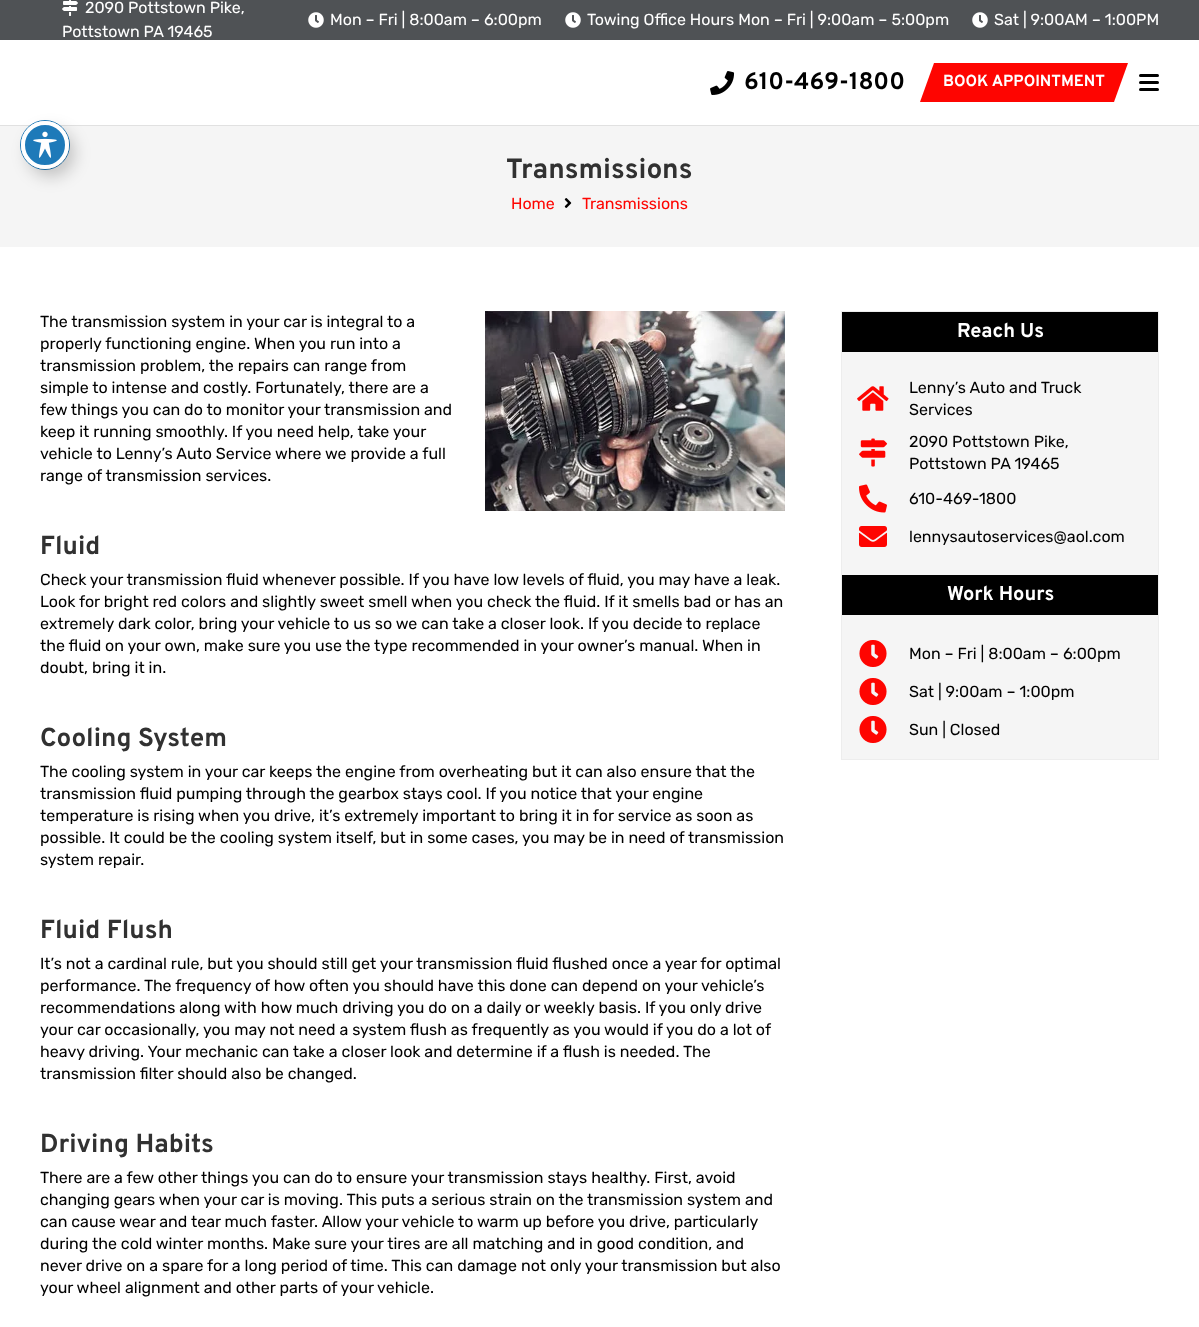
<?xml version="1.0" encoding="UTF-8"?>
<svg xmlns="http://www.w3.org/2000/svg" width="1199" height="1327">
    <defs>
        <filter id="blur1" x="-50%" y="-200%" width="200%" height="500%"><feGaussianBlur stdDeviation="8"/></filter>
    </defs>
    <rect width="100%" height="100%" fill="#FFFFFF"/>
    <rect x="0" y="0" width="1199" height="40" fill="#4F5255"/>
    <image x="62" y="0" width="16" height="16" href="img_01.png"/>
    <text x="85" y="13" font-family="Rubik" font-size="16" fill="#FFFFFF">2090 Pottstown Pike,</text>
    <text x="62" y="37" font-family="Rubik" font-size="16" fill="#FFFFFF">Pottstown PA 19465</text>
    <image x="308" y="12" width="16" height="16" href="img_02.png"/>
    <text x="330" y="25" font-family="Rubik" font-size="16" fill="#FFFFFF">Mon – Fri | 8:00am – 6:00pm</text>
    <image x="565" y="12" width="16" height="16" href="img_02.png"/>
    <text x="587" y="25" font-family="Rubik" font-size="16" fill="#FFFFFF">Towing Office Hours Mon – Fri | 9:00am – 5:00pm</text>
    <image x="972" y="12" width="16" height="16" href="img_02.png"/>
    <text x="994" y="25" font-family="Rubik" font-size="16" fill="#FFFFFF">Sat | 9:00AM – 1:00PM</text>
    <rect x="0" y="125" width="1199" height="1" fill="#E1E1E1"/>
    <image x="710" y="71" width="25" height="24" href="img_03.png"/>
    <text x="744" y="89" font-family="Overpass" font-size="24" font-weight="700" fill="#000000">610-469-1800</text>
    <path d="M 934 63 H 1128 L 1114 102 H 920 Z" fill="#FE0501"/>
    <text x="943" y="86" font-family="Overpass" font-size="16" font-weight="700" fill="#FFFFFF">BOOK APPOINTMENT</text>
    <rect x="1139" y="81" width="20" height="3" rx="1.5" fill="#000000"/>
    <rect x="1139" y="74" width="20" height="3" rx="1.5" fill="#000000"/>
    <rect x="1139" y="88" width="20" height="3" rx="1.5" fill="#000000"/>
    <rect x="0" y="126" width="1199" height="121" fill="#F5F5F5"/>
    <text x="506" y="178" font-family="Overpass" font-size="28" font-weight="700" fill="#313131">Transmissions</text>
    <text x="511" y="209" font-family="Rubik" font-size="16" fill="#FE0501">Home</text>
    <image x="564" y="198" width="8" height="10" href="img_04.png"/>
    <text x="582" y="209" font-family="Rubik" font-size="16" fill="#FE0501">Transmissions</text>
    <text font-family="Rubik" font-size="16" fill="#000000">
        <tspan x="40" y="327">The transmission system in your car is integral to a</tspan>
        <tspan x="40" y="349">properly functioning engine. When you run into a</tspan>
        <tspan x="40" y="371">transmission problem, the repairs can range from</tspan>
        <tspan x="40" y="393">simple to intense and costly. Fortunately, there are a</tspan>
        <tspan x="40" y="415">few things you can do to monitor your transmission and</tspan>
        <tspan x="40" y="437">keep it running smoothly. If you need help, take your</tspan>
        <tspan x="40" y="459">vehicle to Lenny’s Auto Service where we provide a full</tspan>
        <tspan x="40" y="481">range of transmission services.</tspan>
    </text>
    <image x="485" y="311" width="300" height="200" href="img_05.png"/>
    <text x="40" y="554" font-family="Overpass" font-size="26" font-weight="700" fill="#313131">Fluid</text>
    <text font-family="Rubik" font-size="16" fill="#000000">
        <tspan x="40" y="585">Check your transmission fluid whenever possible. If you have low levels of fluid, you may have a leak.</tspan>
        <tspan x="40" y="607">Look for bright red colors and slightly sweet smell when you check the fluid. If it smells bad or has an</tspan>
        <tspan x="40" y="629">extremely dark color, bring your vehicle to us so we can take a closer look. If you decide to replace</tspan>
        <tspan x="40" y="651">the fluid on your own, make sure you use the type recommended in your owner’s manual. When in</tspan>
        <tspan x="40" y="673">doubt, bring it in.</tspan>
    </text>
    <text x="40" y="746" font-family="Overpass" font-size="26" font-weight="700" fill="#313131">Cooling System</text>
    <text font-family="Rubik" font-size="16" fill="#000000">
        <tspan x="40" y="777">The cooling system in your car keeps the engine from overheating but it can also ensure that the</tspan>
        <tspan x="40" y="799">transmission fluid pumping through the gearbox stays cool. If you notice that your engine</tspan>
        <tspan x="40" y="821">temperature is rising when you drive, it’s extremely important to bring it in for service as soon as</tspan>
        <tspan x="40" y="843">possible. It could be the cooling system itself, but in some cases, you may be in need of transmission</tspan>
        <tspan x="40" y="865">system repair.</tspan>
    </text>
    <text x="40" y="938" font-family="Overpass" font-size="26" font-weight="700" fill="#313131">Fluid Flush</text>
    <text font-family="Rubik" font-size="16" fill="#000000">
        <tspan x="40" y="969">It’s not a cardinal rule, but you should still get your transmission fluid flushed once a year for optimal</tspan>
        <tspan x="40" y="991">performance. The frequency of how often you should have this done can depend on your vehicle’s</tspan>
        <tspan x="40" y="1013">recommendations along with how much driving you do on a daily or weekly basis. If you only drive</tspan>
        <tspan x="40" y="1035">your car occasionally, you may not need a system flush as frequently as you would if you do a lot of</tspan>
        <tspan x="40" y="1057">heavy driving. Your mechanic can take a closer look and determine if a flush is needed. The</tspan>
        <tspan x="40" y="1079">transmission filter should also be changed.</tspan>
    </text>
    <text x="40" y="1152" font-family="Overpass" font-size="26" font-weight="700" fill="#313131">Driving Habits</text>
    <text font-family="Rubik" font-size="16" fill="#000000">
        <tspan x="40" y="1183">There are a few other things you can do to ensure your transmission stays healthy. First, avoid</tspan>
        <tspan x="40" y="1205">changing gears when your car is moving. This puts a serious strain on the transmission system and</tspan>
        <tspan x="40" y="1227">can cause wear and tear much faster. Allow your vehicle to warm up before you drive, particularly</tspan>
        <tspan x="40" y="1249">during the cold winter months. Make sure your tires are all matching and in good condition, and</tspan>
        <tspan x="40" y="1271">never drive on a spare for a long period of time. This can damage not only your transmission but also</tspan>
        <tspan x="40" y="1293">your wheel alignment and other parts of your vehicle.</tspan>
    </text>
    <rect x="842" y="352" width="316" height="407" fill="#F5F5F5"/>
    <rect x="841.5" y="311.5" width="317" height="448" fill="none" stroke="#EDEDED"/>
    <rect x="842" y="312" width="316" height="40" fill="#000000"/>
    <text x="957" y="337" font-family="Overpass" font-size="20" font-weight="700" fill="#FFFFFF">Reach Us</text>
    <image x="857" y="386" width="32" height="25" href="img_06.png"/>
    <text font-family="Rubik" font-size="16" fill="#000000">
        <tspan x="909" y="393">Lenny’s Auto and Truck</tspan>
        <tspan x="909" y="415">Services</tspan>
    </text>
    <image x="859" y="438" width="29" height="29" href="img_07.png"/>
    <text font-family="Rubik" font-size="16" fill="#000000">
        <tspan x="909" y="447">2090 Pottstown Pike,</tspan>
        <tspan x="909" y="469">Pottstown PA 19465</tspan>
    </text>
    <image x="859" y="484" width="28" height="29" href="img_08.png"/>
    <text x="909" y="504" font-family="Rubik" font-size="16" fill="#000000">610-469-1800</text>
    <image x="859" y="526" width="28" height="21" href="img_09.png"/>
    <text x="909" y="542" font-family="Rubik" font-size="16" fill="#000000">lennysautoservices@aol.com</text>
    <rect x="842" y="575" width="316" height="40" fill="#000000"/>
    <text x="947" y="600" font-family="Overpass" font-size="20" font-weight="700" fill="#FFFFFF">Work Hours</text>
    <image x="859" y="640" width="28" height="27" href="img_10.png"/>
    <text x="909" y="659" font-family="Rubik" font-size="16" fill="#000000">Mon – Fri | 8:00am – 6:00pm</text>
    <image x="859" y="678" width="28" height="27" href="img_10.png"/>
    <text x="909" y="697" font-family="Rubik" font-size="16" fill="#000000">Sat | 9:00am – 1:00pm</text>
    <image x="859" y="716" width="28" height="27" href="img_10.png"/>
    <text x="909" y="735" font-family="Rubik" font-size="16" fill="#000000">Sun | Closed</text>
    <circle cx="45" cy="145" r="24.5" fill="none" stroke="#1E7AB9"/>
    <rect x="27" y="129" width="48" height="48" rx="24" fill="#000000" fill-opacity="0.2" filter="url(#blur1)"/>
    <circle cx="45" cy="145" r="22" fill="#1E7AB9" stroke="#FFFFFF" stroke-width="4"/>
    <image x="33" y="131" width="24" height="27" href="img_11.png"/>
</svg>
